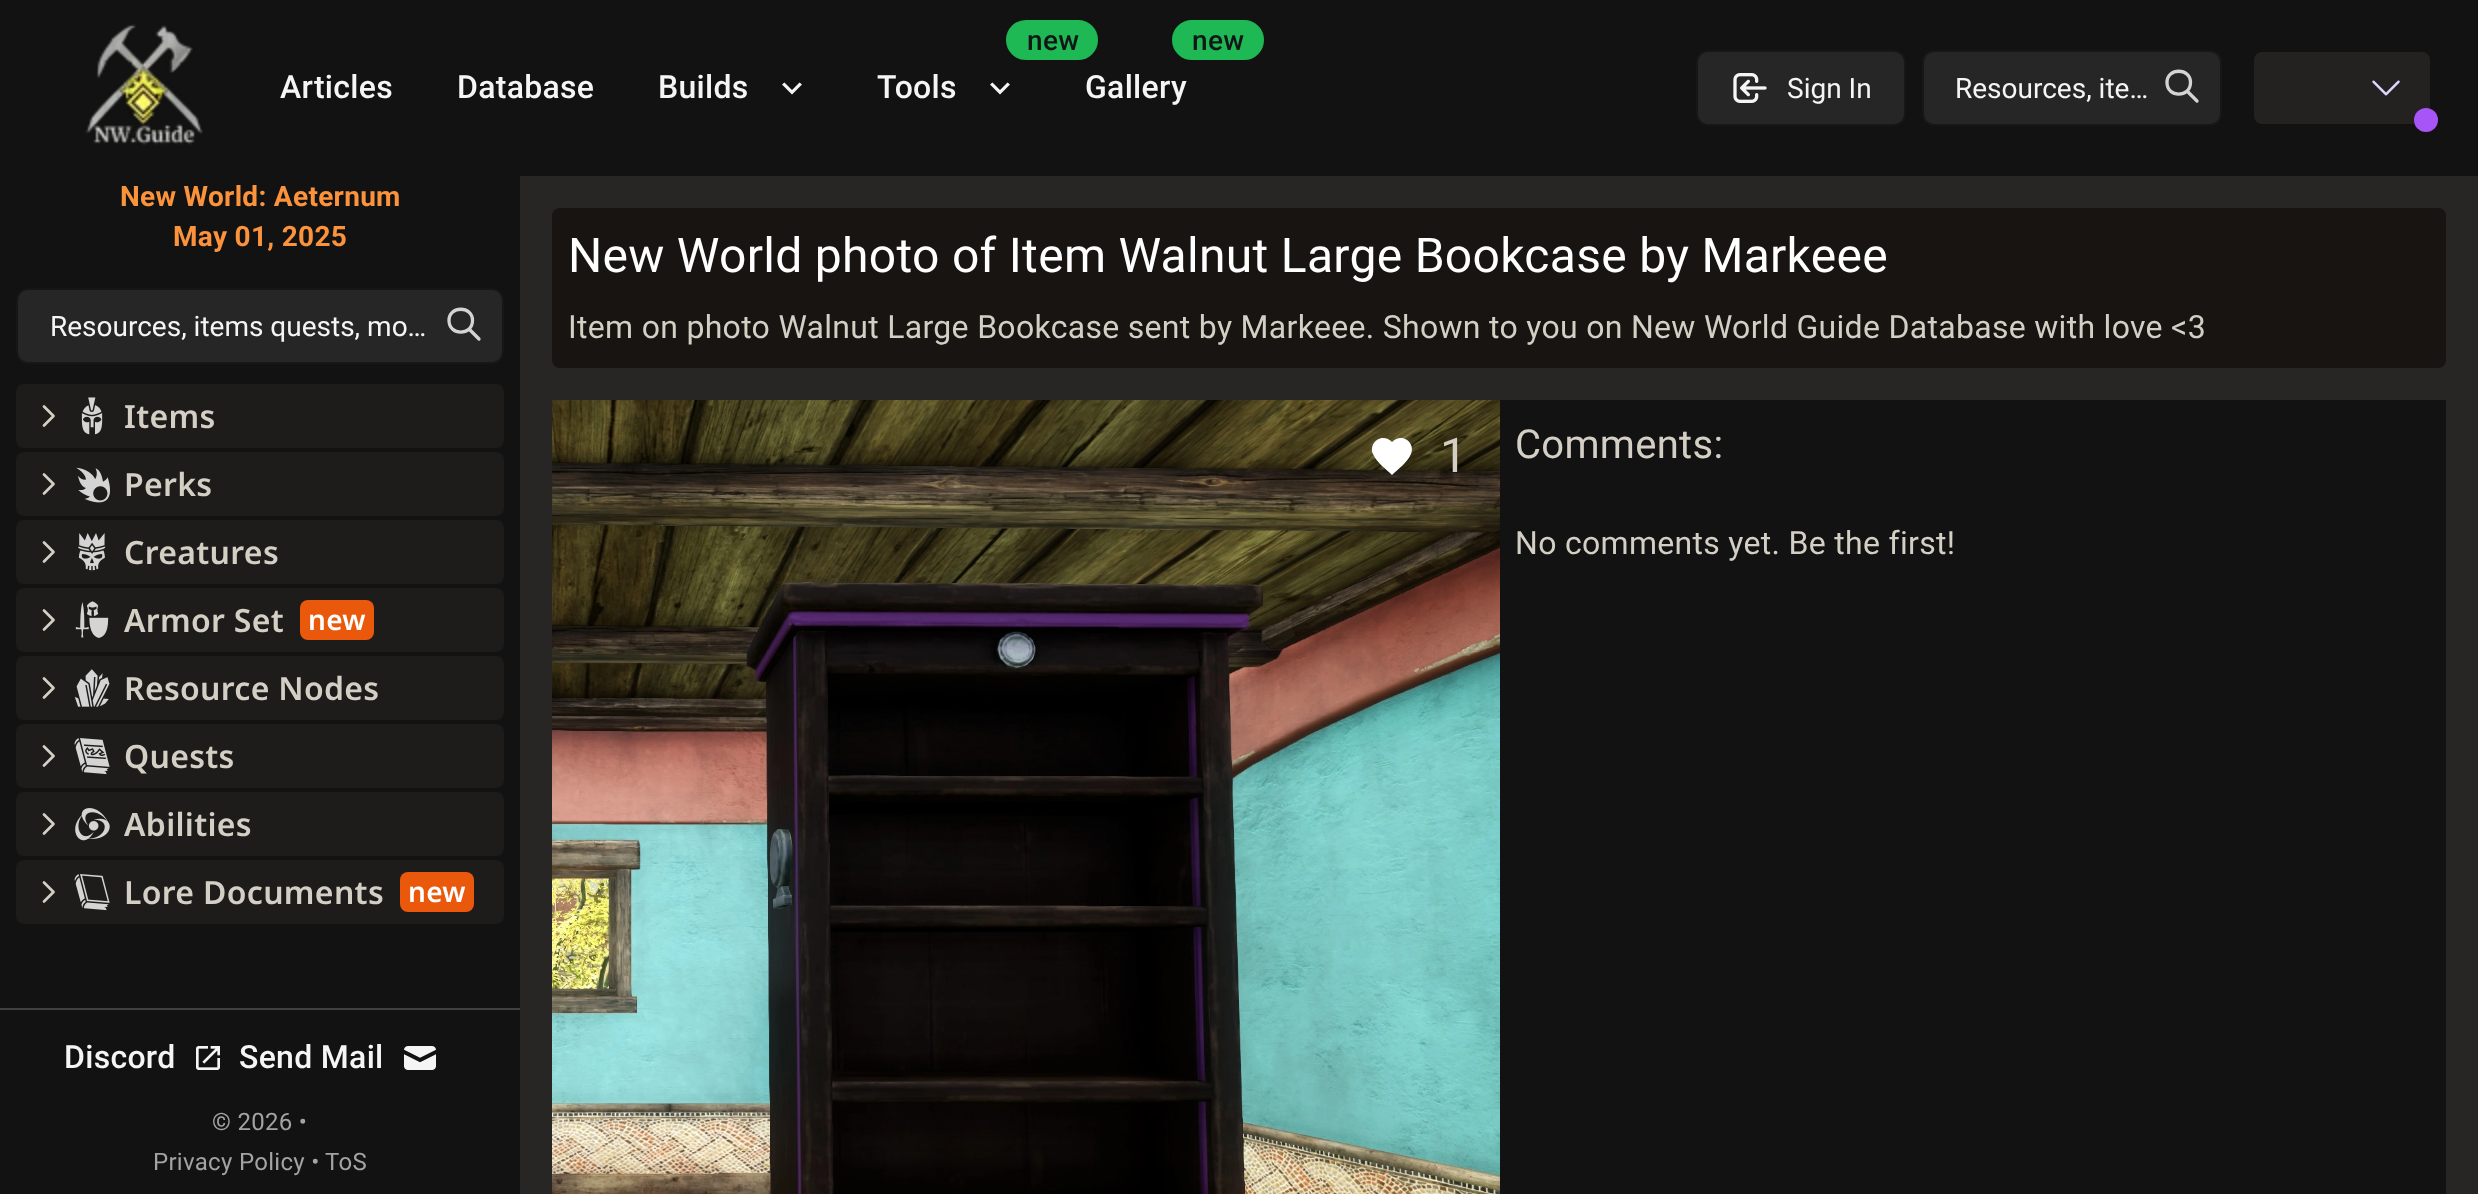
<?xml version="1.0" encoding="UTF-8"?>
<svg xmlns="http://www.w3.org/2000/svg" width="2478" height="1194">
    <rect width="100%" height="100%" fill="#272624"/>
    <rect x="0" y="0" width="2478" height="176" fill="#121212"/>
    <image x="85" y="24" width="118" height="121" href="img_01.png"/>
    <text x="280" y="98" font-family="Roboto" font-size="32" font-weight="500" letter-spacing="0.3" fill="#F5F5F5">Articles</text>
    <text x="457" y="98" font-family="Roboto" font-size="32" font-weight="500" letter-spacing="0.3" fill="#F5F5F5">Database</text>
    <text x="658" y="98" font-family="Roboto" font-size="32" font-weight="500" letter-spacing="0.3" fill="#F5F5F5">Builds</text>
    <path d="M 784.5 82.5 L 792 90 L 799.5 82.5 L 802 84.5 L 792 94.5 L 782 84.5 Z" fill="#F5F5F5"/>
    <rect x="1007" y="21" width="90" height="38" rx="19" fill="#1EB854" stroke="#1EB854" stroke-width="2"/>
    <text x="1027" y="50" font-family="Roboto" font-size="28" font-weight="500" letter-spacing="0.3" fill="#131616">new</text>
    <text x="877" y="98" font-family="Roboto" font-size="32" font-weight="500" letter-spacing="0.3" fill="#F5F5F5">Tools</text>
    <path d="M 992.5 82.5 L 1000 90 L 1007.5 82.5 L 1010 84.5 L 1000 94.5 L 990 84.5 Z" fill="#F5F5F5"/>
    <rect x="1173" y="21" width="90" height="38" rx="19" fill="#1EB854" stroke="#1EB854" stroke-width="2"/>
    <text x="1192" y="50" font-family="Roboto" font-size="28" font-weight="500" letter-spacing="0.3" fill="#131616">new</text>
    <text x="1085" y="98" font-family="Roboto" font-size="32" font-weight="500" letter-spacing="0.3" fill="#F5F5F5">Gallery</text>
    <rect x="1697" y="51" width="208" height="74" rx="11" fill="#262626" stroke="#171717" stroke-width="2"/>
    <image x="1733" y="73" width="34" height="30" href="img_02.png"/>
    <text x="1787" y="98" font-family="Roboto" font-size="28" fill="#F5F5F5">Sign In</text>
    <rect x="1923" y="51" width="298" height="74" rx="11" fill="#262626" stroke="#171717" stroke-width="2"/>
    <text x="1955" y="98" font-family="Roboto" font-size="28" fill="#F5F5F5">Resources, ite…</text>
    <path d="M 2197 101 L 2187 91 M 2190.5 82.5 C 2190.5 98 2167 98 2167 82.5 C 2167 67.5 2190.5 67.5 2190.5 82.5 Z" fill="none" stroke="#D4D4D4" stroke-width="3.3" stroke-linecap="round" stroke-linejoin="round"/>
    <rect x="2254" y="52" width="176" height="72" rx="8" fill="#232220"/>
    <image x="2372" y="80" width="28" height="16" href="img_03.png"/>
    <circle cx="2426" cy="120" r="12" fill="#A855F7"/>
    <rect x="0" y="176" width="520" height="1018" fill="#121212"/>
    <text x="120" y="206" font-family="Roboto" font-size="28" font-weight="700" letter-spacing="0.3" fill="#FB923C">New World: Aeternum</text>
    <text x="173" y="246" font-family="Roboto" font-size="28" font-weight="700" letter-spacing="0.3" fill="#FB923C">May 01, 2025</text>
    <rect x="17" y="289" width="486" height="74" rx="11" fill="#262626" stroke="#171717" stroke-width="2"/>
    <text x="50" y="336" font-family="Roboto" font-size="28" fill="#F5F5F5">Resources, items quests, mo…</text>
    <path d="M 479 339 L 469 329 M 472.5 320.5 C 472.5 336 449 336 449 320.5 C 449 305.5 472.5 305.5 472.5 320.5 Z" fill="none" stroke="#D4D4D4" stroke-width="3.3" stroke-linecap="round" stroke-linejoin="round"/>
    <rect x="16" y="384" width="488" height="64" rx="8" fill="#1D1C1B"/>
    <path d="M 44 406.5 L 53.5 416 L 44 425.5" fill="none" stroke="#D4CFC4" stroke-width="2.7" stroke-linecap="round" stroke-linejoin="round"/>
    <image x="81" y="397" width="22" height="38" href="img_04.png"/>
    <text x="124" y="428" font-family="Noto Sans" font-size="32" font-weight="600" letter-spacing="0.3" fill="#D4CFC4">Items</text>
    <rect x="16" y="452" width="488" height="64" rx="8" fill="#1D1C1B"/>
    <path d="M 44 474.5 L 53.5 484 L 44 493.5" fill="none" stroke="#D4CFC4" stroke-width="2.7" stroke-linecap="round" stroke-linejoin="round"/>
    <image x="76" y="467" width="34" height="36" href="img_05.png"/>
    <text x="124" y="496" font-family="Noto Sans" font-size="32" font-weight="600" letter-spacing="0.3" fill="#D4CFC4">Perks</text>
    <rect x="16" y="520" width="488" height="64" rx="8" fill="#1D1C1B"/>
    <path d="M 44 542.5 L 53.5 552 L 44 561.5" fill="none" stroke="#D4CFC4" stroke-width="2.7" stroke-linecap="round" stroke-linejoin="round"/>
    <image x="78" y="533" width="28" height="38" href="img_06.png"/>
    <text x="124" y="564" font-family="Noto Sans" font-size="32" font-weight="600" letter-spacing="0.3" fill="#D4CFC4">Creatures</text>
    <rect x="16" y="588" width="488" height="64" rx="8" fill="#1D1C1B"/>
    <path d="M 44 610.5 L 53.5 620 L 44 629.5" fill="none" stroke="#D4CFC4" stroke-width="2.7" stroke-linecap="round" stroke-linejoin="round"/>
    <image x="75" y="601" width="34" height="37" href="img_07.png"/>
    <text x="124" y="632" font-family="Noto Sans" font-size="32" font-weight="600" letter-spacing="0.3" fill="#D4CFC4">Armor Set</text>
    <rect x="300" y="600" width="74" height="40" rx="8" fill="#EA580C"/>
    <text x="308" y="630" font-family="Noto Sans" font-size="28" font-weight="600" letter-spacing="0.3" fill="#FFFFFF">new</text>
    <rect x="16" y="656" width="488" height="64" rx="8" fill="#1D1C1B"/>
    <path d="M 44 678.5 L 53.5 688 L 44 697.5" fill="none" stroke="#D4CFC4" stroke-width="2.7" stroke-linecap="round" stroke-linejoin="round"/>
    <image x="74" y="669" width="36" height="38" href="img_08.png"/>
    <text x="124" y="700" font-family="Noto Sans" font-size="32" font-weight="600" letter-spacing="0.3" fill="#D4CFC4">Resource Nodes</text>
    <rect x="16" y="724" width="488" height="64" rx="8" fill="#1D1C1B"/>
    <path d="M 44 746.5 L 53.5 756 L 44 765.5" fill="none" stroke="#D4CFC4" stroke-width="2.7" stroke-linecap="round" stroke-linejoin="round"/>
    <image x="74" y="738" width="36" height="37" href="img_09.png"/>
    <text x="124" y="768" font-family="Noto Sans" font-size="32" font-weight="600" letter-spacing="0.3" fill="#D4CFC4">Quests</text>
    <rect x="16" y="792" width="488" height="64" rx="8" fill="#1D1C1B"/>
    <path d="M 44 814.5 L 53.5 824 L 44 833.5" fill="none" stroke="#D4CFC4" stroke-width="2.7" stroke-linecap="round" stroke-linejoin="round"/>
    <image x="75" y="808" width="35" height="33" href="img_10.png"/>
    <text x="124" y="836" font-family="Noto Sans" font-size="32" font-weight="600" letter-spacing="0.3" fill="#D4CFC4">Abilities</text>
    <rect x="16" y="860" width="488" height="64" rx="8" fill="#1D1C1B"/>
    <path d="M 44 882.5 L 53.5 892 L 44 901.5" fill="none" stroke="#D4CFC4" stroke-width="2.7" stroke-linecap="round" stroke-linejoin="round"/>
    <image x="74" y="874" width="36" height="37" href="img_11.png"/>
    <text x="124" y="904" font-family="Noto Sans" font-size="32" font-weight="600" letter-spacing="0.3" fill="#D4CFC4">Lore Documents</text>
    <rect x="400" y="872" width="74" height="40" rx="8" fill="#EA580C"/>
    <text x="408" y="902" font-family="Noto Sans" font-size="28" font-weight="600" letter-spacing="0.3" fill="#FFFFFF">new</text>
    <rect x="0" y="1008" width="520" height="2" fill="#404040"/>
    <text x="64" y="1068" font-family="Roboto" font-size="32" font-weight="500" letter-spacing="0.3" fill="#F5F5F5">Discord</text>
    <image x="196" y="1046" width="24" height="24" href="img_12.png"/>
    <text x="239" y="1068" font-family="Roboto" font-size="32" font-weight="500" letter-spacing="0.3" fill="#F5F5F5">Send Mail</text>
    <image x="404" y="1046" width="32" height="24" href="img_13.png"/>
    <text x="212" y="1130" font-family="Roboto" font-size="24" letter-spacing="0.3" fill="#A3A3A3">© 2026 •</text>
    <text x="153" y="1170" font-family="Roboto" font-size="24" letter-spacing="0.3" fill="#A3A3A3">Privacy Policy •</text>
    <text x="325" y="1170" font-family="Roboto" font-size="24" letter-spacing="0.3" fill="#A3A3A3">ToS</text>
    <rect x="552" y="208" width="1894" height="160" rx="8" fill="#171411"/>
    <text x="568" y="272" font-family="Roboto" font-size="48" letter-spacing="0.3" fill="#FFFFFF">New World photo of Item Walnut Large Bookcase by Markeee</text>
    <text x="568" y="338" font-family="Roboto" font-size="32" letter-spacing="0.3" fill="#D4CFC4">Item on photo Walnut Large Bookcase sent by Markeee. Shown to you on New World Guide Database with love &lt;3</text>
    <rect x="1500" y="400" width="946" height="794" fill="#121212"/>
    <image x="552" y="400" width="948" height="794" href="img_14.png"/>
    <path d="M 1392 475 C 1386 469 1377 463 1373 454 C 1368 442 1383 432 1392 442 C 1401 432 1416 442 1411 454 C 1407 463 1398 469 1392 475 Z" fill="#FFFFFF"/>
    <text x="1440" y="472" font-family="Roboto" font-size="48" letter-spacing="0.3" fill="#D4CFC4">1</text>
    <text x="1515" y="458" font-family="Roboto" font-size="40" letter-spacing="0.3" fill="#D4CFC4">Comments:</text>
    <text x="1515" y="554" font-family="Roboto" font-size="32" letter-spacing="0.3" fill="#D4CFC4">No comments yet. Be the first!</text>
</svg>
